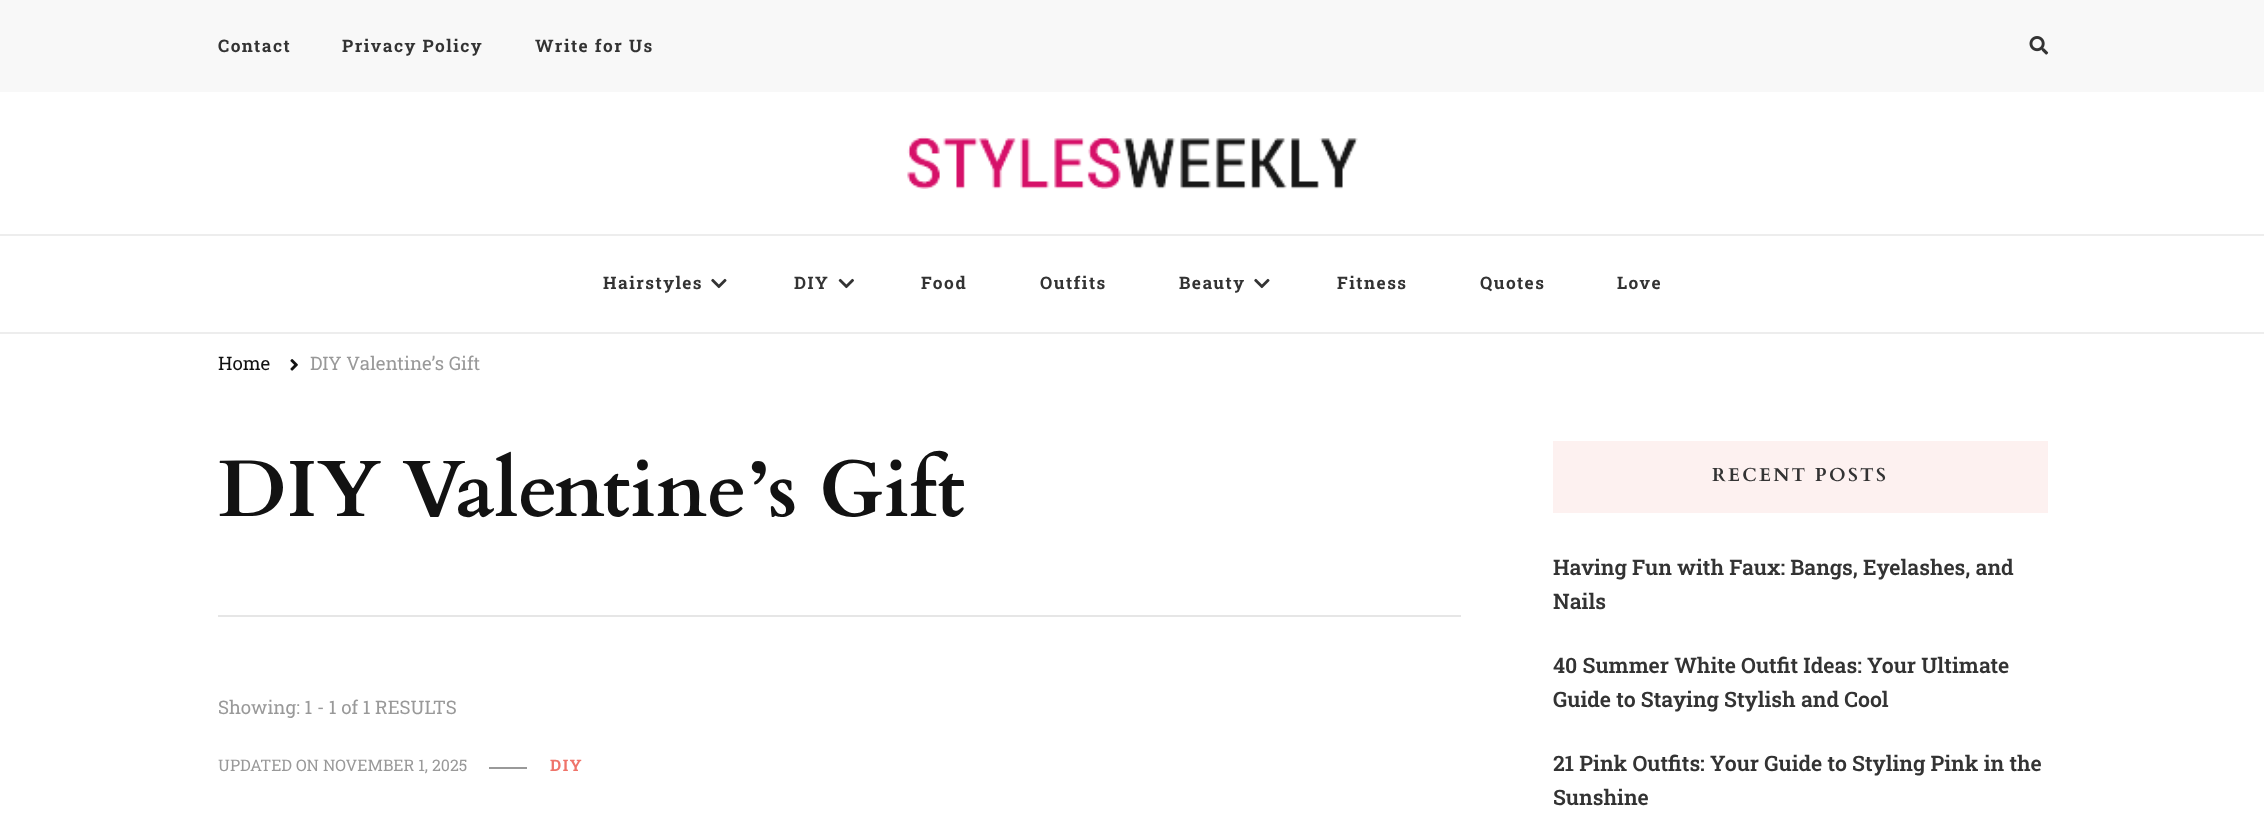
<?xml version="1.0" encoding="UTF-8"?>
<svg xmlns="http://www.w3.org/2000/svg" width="2264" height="817">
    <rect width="100%" height="100%" fill="#FFFFFF"/>
    <rect x="0" y="0" width="2264" height="92" fill="#F8F8F8"/>
    <text x="218" y="52" font-family="Roboto Slab" font-size="17.25" font-weight="700" letter-spacing="1.5" fill="#333333">Contact</text>
    <text x="342" y="52" font-family="Roboto Slab" font-size="17.25" font-weight="700" letter-spacing="1.5" fill="#333333">Privacy Policy</text>
    <text x="535" y="52" font-family="Roboto Slab" font-size="17.25" font-weight="700" letter-spacing="1.5" fill="#333333">Write for Us</text>
    <image x="2029" y="36" width="20" height="19" href="img_01.png"/>
    <image x="907" y="136" width="451" height="53" href="img_02.png"/>
    <rect x="0" y="234" width="2264" height="2" fill="#EDEDED"/>
    <rect x="0" y="332" width="2264" height="2" fill="#EDEDED"/>
    <text x="603" y="289" font-family="Roboto Slab" font-size="17.25" font-weight="700" letter-spacing="1.5" fill="#333333">Hairstyles</text>
    <image x="711" y="278" width="16" height="11" href="img_03.png"/>
    <text x="794" y="289" font-family="Roboto Slab" font-size="17.25" font-weight="700" letter-spacing="1.5" fill="#333333">DIY</text>
    <image x="838" y="278" width="16" height="11" href="img_04.png"/>
    <text x="921" y="289" font-family="Roboto Slab" font-size="17.25" font-weight="700" letter-spacing="1.5" fill="#333333">Food</text>
    <text x="1040" y="289" font-family="Roboto Slab" font-size="17.25" font-weight="700" letter-spacing="1.5" fill="#333333">Outfits</text>
    <text x="1179" y="289" font-family="Roboto Slab" font-size="17.25" font-weight="700" letter-spacing="1.5" fill="#333333">Beauty</text>
    <image x="1254" y="278" width="16" height="11" href="img_03.png"/>
    <text x="1337" y="289" font-family="Roboto Slab" font-size="17.25" font-weight="700" letter-spacing="1.5" fill="#333333">Fitness</text>
    <text x="1480" y="289" font-family="Roboto Slab" font-size="17.25" font-weight="700" letter-spacing="1.5" fill="#333333">Quotes</text>
    <text x="1617" y="289" font-family="Roboto Slab" font-size="17.25" font-weight="700" letter-spacing="1.5" fill="#333333">Love</text>
    <text x="218" y="370" font-family="Roboto Slab" font-size="18.7" fill="#121212">Home</text>
    <image x="290" y="359" width="8" height="12" href="img_05.png"/>
    <text x="310" y="370" font-family="Roboto Slab" font-size="18.7" fill="#999999">DIY Valentine’s Gift</text>
    <rect x="218" y="615" width="1243" height="2" fill="#E6E6E6"/>
    <text x="218" y="516" font-family="Cardo" font-size="80" font-weight="700" fill="#121212">DIY Valentine’s Gift</text>
    <text x="218" y="714" font-family="Roboto Slab" font-size="18.7" fill="#999999">Showing: 1 - 1 of 1 RESULTS</text>
    <text x="218" y="771" font-family="Roboto Slab" font-size="16" fill="#999999">UPDATED ON NOVEMBER 1, 2025</text>
    <rect x="489" y="767" width="38" height="2" fill="#999999"/>
    <text x="550" y="771" font-family="Roboto Slab" font-size="16" font-weight="700" letter-spacing="1.5" fill="#EF746A">DIY</text>
    <rect x="1553" y="441" width="495" height="72" fill="#FDF1F0"/>
    <text x="1712" y="481" font-family="Cardo" font-size="18.7" font-weight="700" letter-spacing="2.25" fill="#333333">RECENT POSTS</text>
    <text font-family="Roboto Slab" font-size="21.3" font-weight="600" fill="#333333">
        <tspan x="1553" y="575">Having Fun with Faux: Bangs, Eyelashes, and</tspan>
        <tspan x="1553" y="609">Nails</tspan>
    </text>
    <text font-family="Roboto Slab" font-size="21.3" font-weight="600" fill="#333333">
        <tspan x="1553" y="673">40 Summer White Outfit Ideas: Your Ultimate</tspan>
        <tspan x="1553" y="707">Guide to Staying Stylish and Cool</tspan>
    </text>
    <text font-family="Roboto Slab" font-size="21.3" font-weight="600" fill="#333333">
        <tspan x="1553" y="771">21 Pink Outfits: Your Guide to Styling Pink in the</tspan>
        <tspan x="1553" y="805">Sunshine</tspan>
    </text>
</svg>
